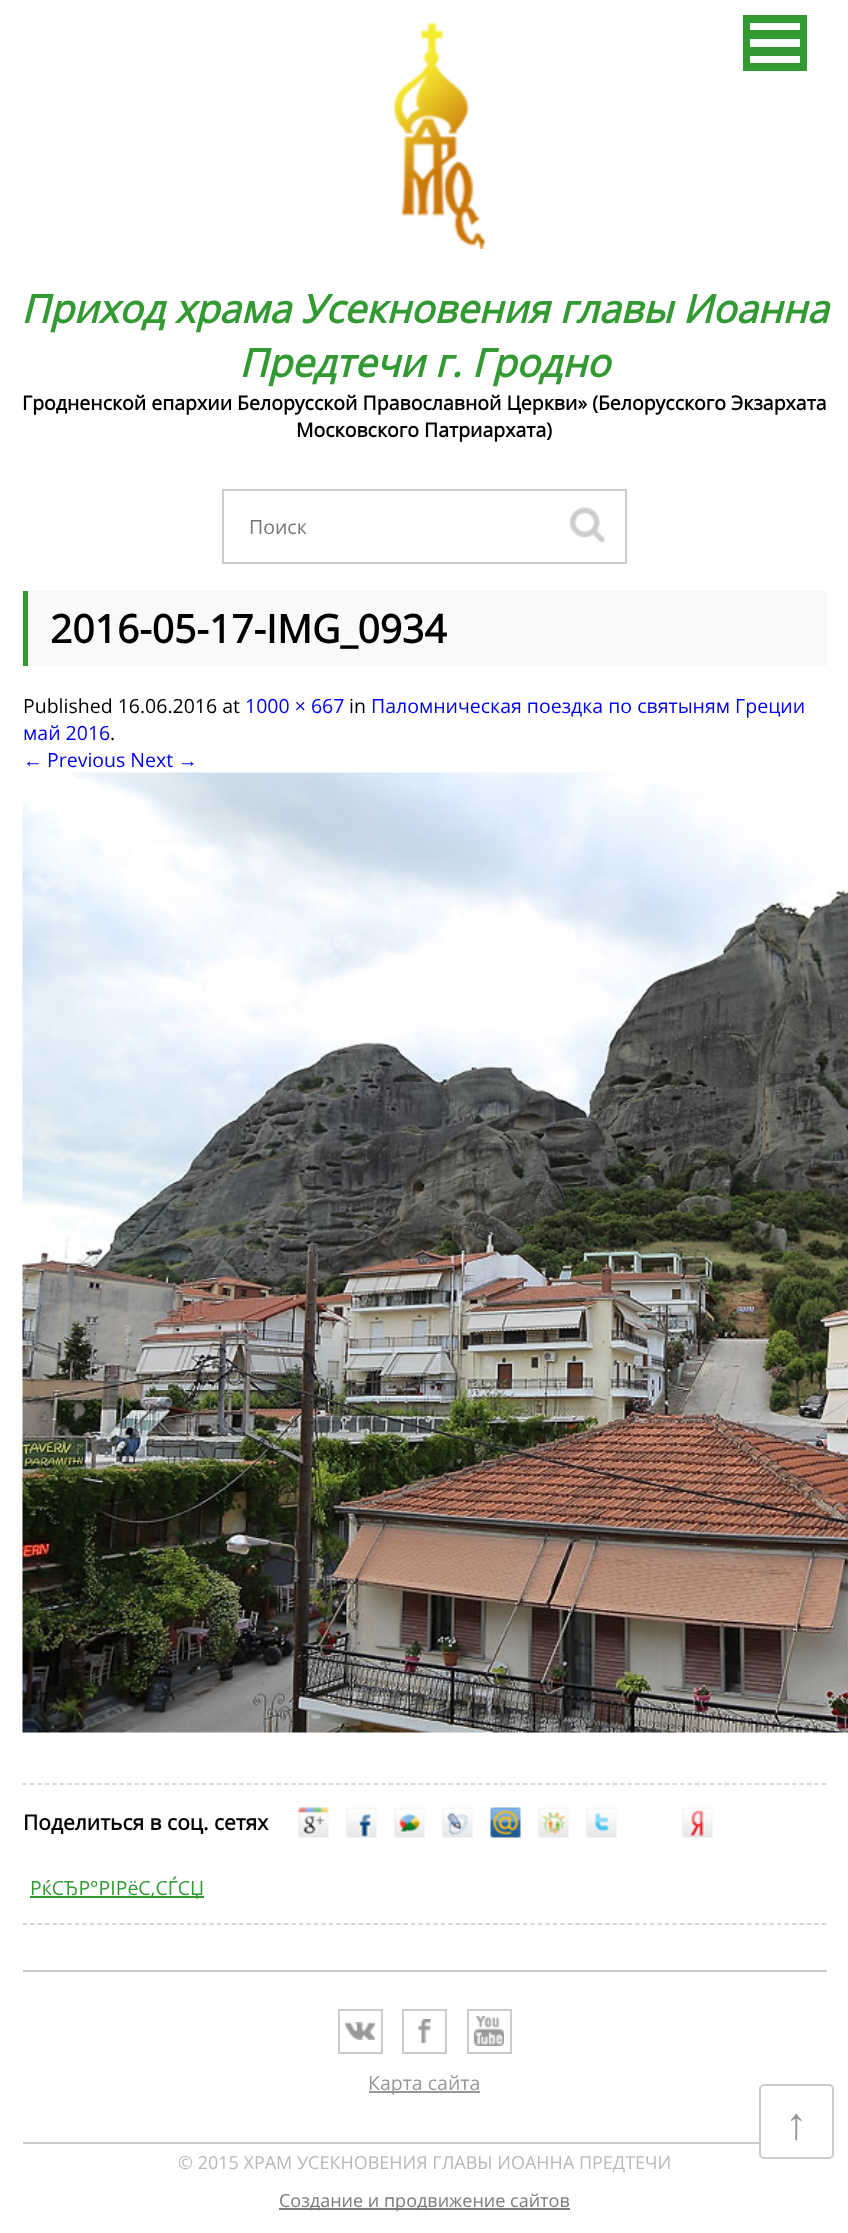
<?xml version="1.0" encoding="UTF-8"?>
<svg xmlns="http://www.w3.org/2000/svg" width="848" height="2233">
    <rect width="100%" height="100%" fill="#FFFFFF"/>
    <rect x="743" y="15" width="64" height="56" fill="#339933"/>
    <rect x="750" y="23" width="50" height="7" fill="#FFFFFF"/>
    <rect x="750" y="39" width="50" height="8" fill="#FFFFFF"/>
    <rect x="750" y="56" width="50" height="7" fill="#FFFFFF"/>
    <image x="394" y="22" width="91" height="227" href="img_01.png"/>
    <text x="21" y="323" font-family="Open Sans" font-size="39" font-weight="700" font-style="italic" fill="#339933">Приход храма Усекновения главы Иоанна</text>
    <text x="239" y="377" font-family="Open Sans" font-size="39" font-weight="700" font-style="italic" fill="#339933">Предтечи г. Гродно</text>
    <text x="22" y="410" font-family="Open Sans" font-size="19.5" font-weight="700" fill="#000000">Гродненской епархии Белорусской Православной Церкви» (Белорусского Экзархата</text>
    <text x="296" y="437" font-family="Open Sans" font-size="19.5" font-weight="700" fill="#000000">Московского Патриархата)</text>
    <rect x="223" y="490" width="403" height="73" fill="none" stroke="#CCCCCC" stroke-width="2"/>
    <text x="249" y="534" font-family="Open Sans" font-size="19.5" fill="#757575">Поиск</text>
    <image x="569" y="507" width="36" height="37" href="img_02.png"/>
    <rect x="28" y="591" width="799" height="75" fill="#F9F9F9"/>
    <rect x="23" y="591" width="5" height="75" fill="#339933"/>
    <text x="50" y="643" font-family="Open Sans" font-size="39" font-weight="700" fill="#000000">2016-05-17-IMG_0934</text>
    <text x="23" y="713" font-family="Open Sans" font-size="19.5" fill="#000000">Published 16.06.2016 at</text>
    <text x="245" y="713" font-family="Open Sans" font-size="19.5" fill="#0000EE">1000 × 667</text>
    <text x="349" y="713" font-family="Open Sans" font-size="19.5" fill="#000000">in</text>
    <text x="371" y="713" font-family="Open Sans" font-size="19.5" fill="#0000EE">Паломническая поездка по святыням Греции</text>
    <text x="23" y="740" font-family="Open Sans" font-size="19.5" fill="#0000EE">май 2016</text>
    <text x="110" y="740" font-family="Open Sans" font-size="19.5" fill="#000000">.</text>
    <text x="23" y="767" font-family="Liberation Sans" font-size="19.5" fill="#0000EE">←</text>
    <text x="47" y="767" font-family="Open Sans" font-size="19.5" fill="#0000EE">Previous Next</text>
    <text x="178" y="767" font-family="Liberation Sans" font-size="19.5" fill="#0000EE">→</text>
    <image x="22" y="772" width="826" height="961" href="img_03.png"/>
    <path d="M 22.5 1784 H 826.5" fill="none" stroke="#CCCCCC" stroke-width="1.5" stroke-dasharray="4.5 2.97"/>
    <path d="M 22.5 1924 H 826.5" fill="none" stroke="#CCCCCC" stroke-width="1.5" stroke-dasharray="4.5 2.97"/>
    <text x="23" y="1830" font-family="Open Sans" font-size="21" font-weight="700" fill="#000000">Поделиться в соц. сетях</text>
    <image x="298" y="1807" width="31" height="31" href="img_04.png"/>
    <image x="346" y="1807" width="31" height="31" href="img_05.png"/>
    <image x="394" y="1807" width="31" height="31" href="img_06.png"/>
    <image x="442" y="1807" width="31" height="31" href="img_07.png"/>
    <image x="490" y="1807" width="31" height="31" href="img_08.png"/>
    <image x="538" y="1807" width="31" height="31" href="img_09.png"/>
    <image x="586" y="1807" width="31" height="31" href="img_10.png"/>
    <image x="682" y="1807" width="31" height="31" href="img_11.png"/>
    <rect x="30" y="1896" width="174" height="2" fill="#339933"/>
    <text x="30" y="1895" font-family="Open Sans" font-size="19.5" fill="#339933">РќСЂР°РІРёС‚СЃСЏ</text>
    <rect x="23" y="1970" width="804" height="2" fill="#CCCCCC"/>
    <rect x="23" y="2142" width="736" height="2" fill="#CCCCCC"/>
    <image x="345" y="2022" width="30" height="18" href="img_12.png"/>
    <rect x="339" y="2010" width="43" height="43" fill="none" stroke="#CCCCCC" stroke-width="2"/>
    <image x="418" y="2019" width="13" height="24" href="img_13.png"/>
    <rect x="403" y="2010" width="43" height="43" fill="none" stroke="#CCCCCC" stroke-width="2"/>
    <image x="474" y="2016" width="30" height="30" href="img_14.png"/>
    <rect x="468" y="2010" width="43" height="43" fill="none" stroke="#CCCCCC" stroke-width="2"/>
    <rect x="369" y="2091" width="111" height="2" fill="#979797"/>
    <text x="368" y="2090" font-family="Open Sans" font-size="19.5" fill="#979797">Карта сайта</text>
    <text x="178" y="2169" font-family="Open Sans" font-size="18" fill="#B9B8B8">© 2015 ХРАМ УСЕКНОВЕНИЯ ГЛАВЫ ИОАННА ПРЕДТЕЧИ</text>
    <rect x="279" y="2208" width="291" height="2" fill="#7B7B7B"/>
    <text x="279" y="2207" font-family="Open Sans" font-size="18" fill="#7B7B7B">Cоздание и продвижение сайтов</text>
    <rect x="760" y="2085" width="73" height="73" rx="4" fill="none" stroke="#CCCCCC" stroke-width="2"/>
    <text x="785" y="2139" font-family="Liberation Sans" font-size="45" fill="#979797">↑</text>
</svg>
